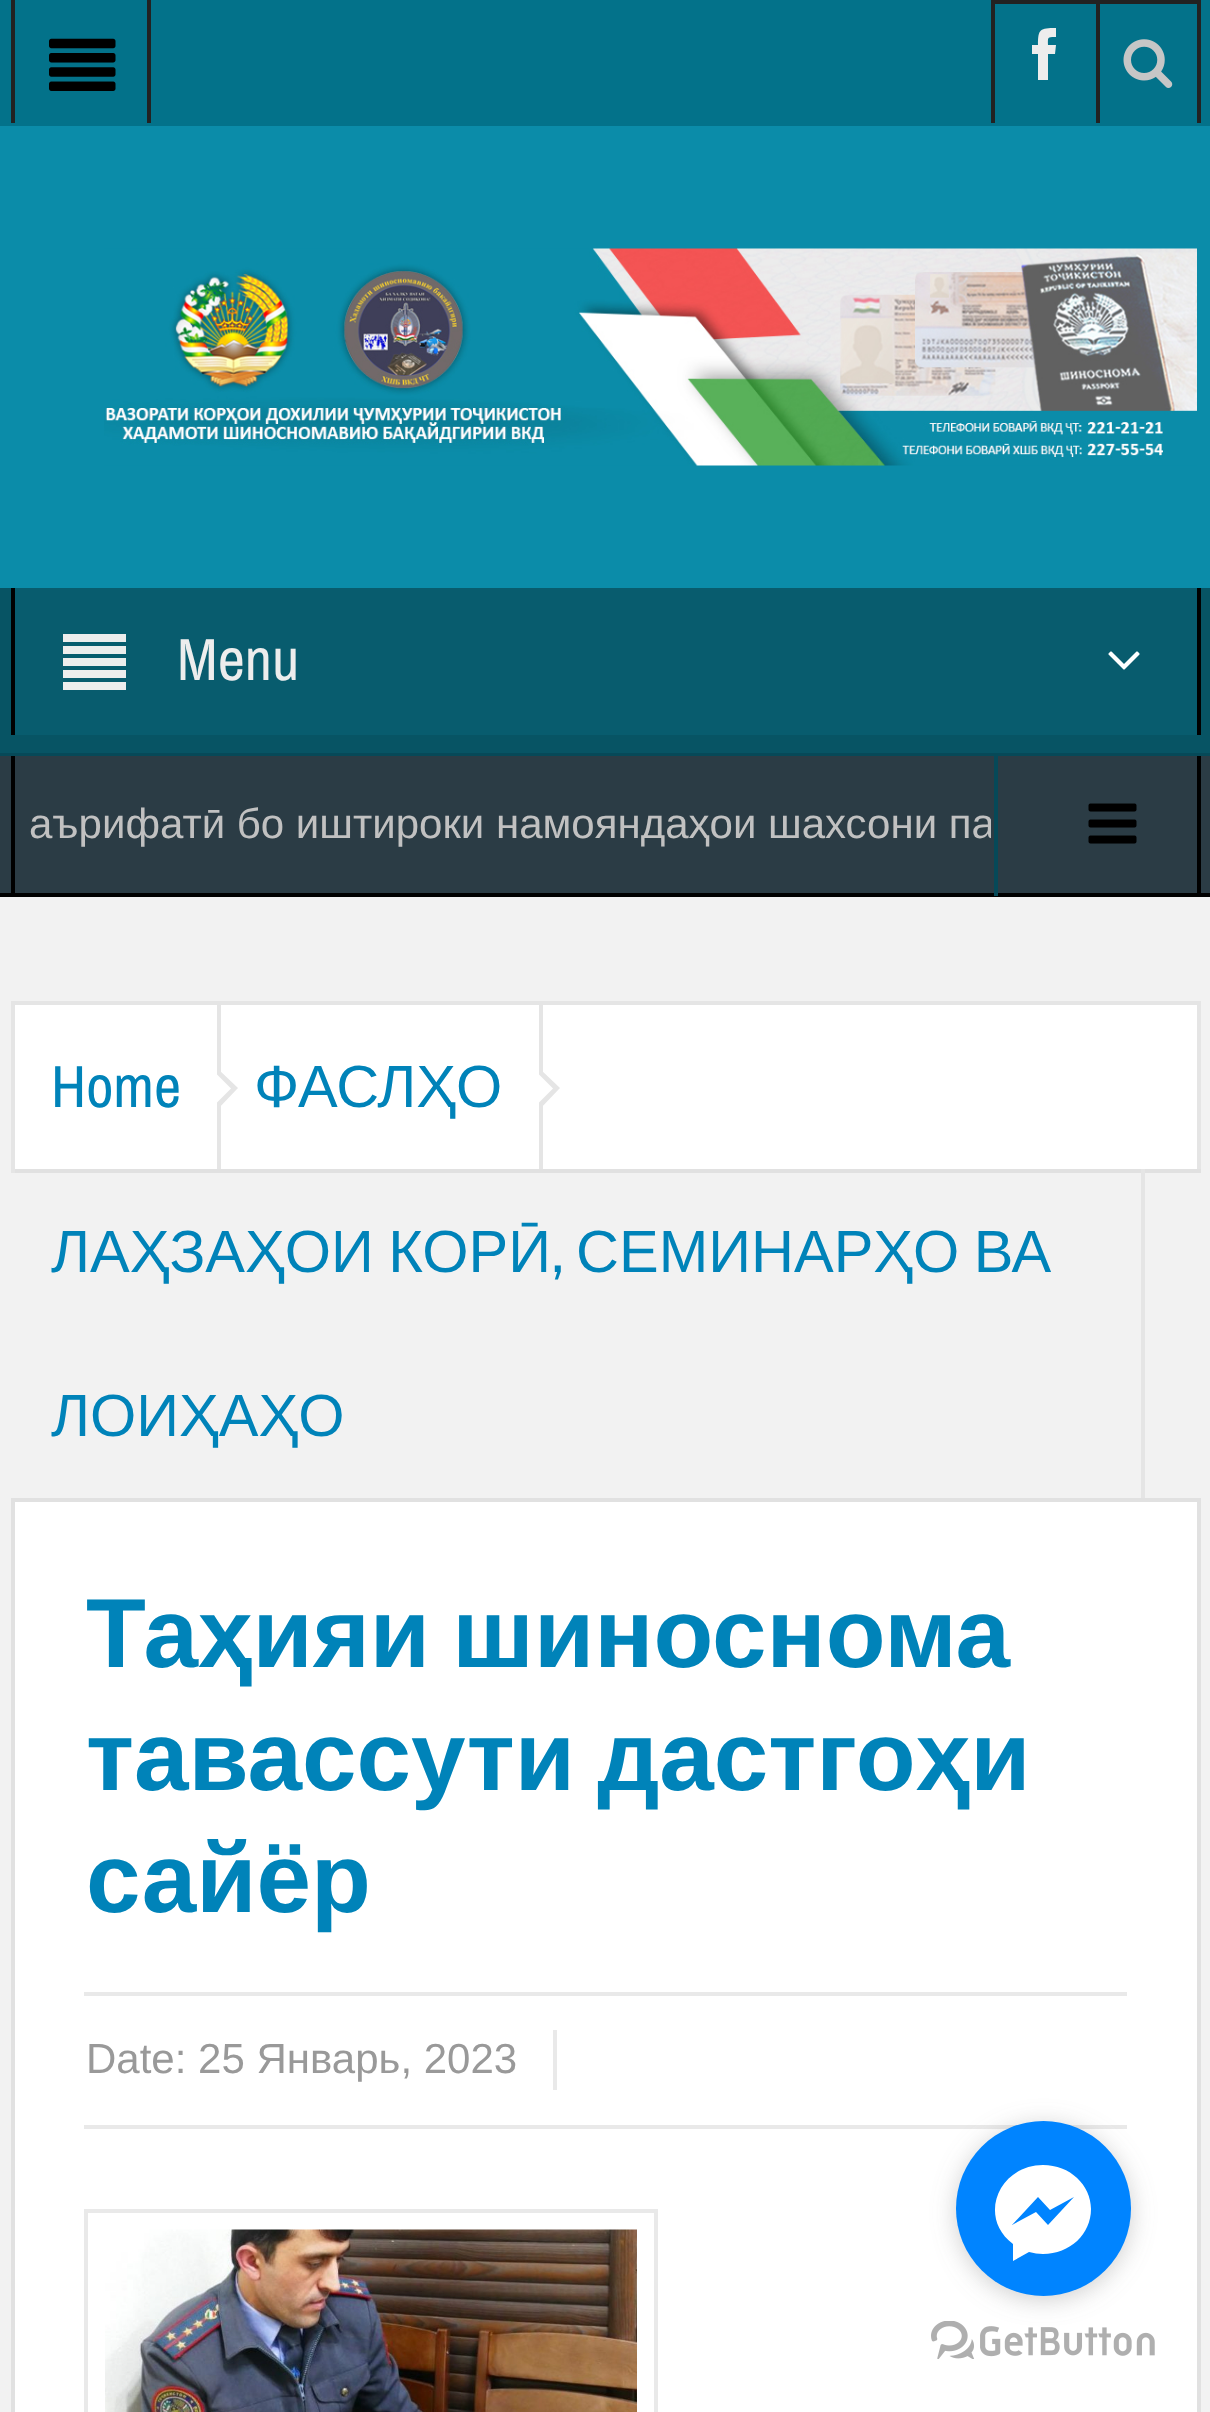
<?xml version="1.0" encoding="UTF-8"?>
<svg xmlns="http://www.w3.org/2000/svg" width="1210" height="2412">
    <defs>
        <clipPath id="clip1"><rect x="14" y="756" width="977" height="137"/></clipPath>
        <filter id="blur1" x="-50%" y="-200%" width="200%" height="500%"><feGaussianBlur stdDeviation="12"/></filter>
    </defs>
    <rect width="100%" height="100%" fill="#F2F2F2"/>
    <rect x="0" y="0" width="1210" height="126" fill="#03728A"/>
    <rect x="147" y="0" width="4" height="123" fill="#222222"/>
    <rect x="11" y="0" width="4" height="123" fill="#222222"/>
    <image x="49" y="38" width="67" height="53" href="img_01.png"/>
    <rect x="991" y="0" width="210" height="4" fill="#222222"/>
    <rect x="991" y="0" width="4" height="123" fill="#222222"/>
    <path d="M 1048 80 H 1038 V 54 H 1032 V 45 H 1038 C 1038 29 1040 28 1056 28 V 37 C 1047 37 1048 37 1048 45 H 1056 L 1055 54 H 1048 Z" fill="#EDEDED"/>
    <rect x="1197" y="0" width="4" height="123" fill="#222222"/>
    <rect x="1096" y="0" width="4" height="123" fill="#222222"/>
    <image x="1123" y="39" width="50" height="49" href="img_02.png"/>
    <rect x="0" y="126" width="1210" height="462" fill="#0B8CA9"/>
    <image x="104" y="248" width="1093" height="218" href="img_03.png"/>
    <rect x="0" y="588" width="1210" height="165" fill="#075464"/>
    <rect x="0" y="753" width="1210" height="3" fill="#064958"/>
    <rect x="15" y="588" width="1182" height="147" fill="#085C6E"/>
    <rect x="1197" y="588" width="4" height="147" fill="#000000"/>
    <rect x="11" y="588" width="4" height="147" fill="#000000"/>
    <path d="M 63 634 H 126 V 642 H 63 Z M 63 646 H 126 V 654 H 63 Z M 63 658 H 126 V 666 H 63 Z M 63 670 H 126 V 678 H 63 Z M 63 682 H 126 V 690 H 63 Z" fill="#EDEDED"/>
    <text x="177" y="680" font-family="Archivo Narrow" font-size="59.5" fill="#EDEDED">Menu</text>
    <image x="1108" y="651" width="32" height="19" href="img_04.png"/>
    <rect x="0" y="756" width="1210" height="137" fill="#2B3C45"/>
    <rect x="0" y="893" width="1210" height="4" fill="#000000"/>
    <rect x="994" y="756" width="4" height="140" fill="#064958"/>
    <rect x="11" y="756" width="4" height="140" fill="#000000"/>
    <g clip-path="url(#clip1)">
        <text x="29" y="838" font-family="Liberation Sans" font-size="42" fill="#C1C1C1">аърифатӣ бо иштироки намояндаҳои шахсони па</text>
    </g>
    <rect x="1197" y="756" width="4" height="140" fill="#000000"/>
    <image x="1088" y="803" width="49" height="41" href="img_05.png"/>
    <rect x="15" y="1005" width="1182" height="164" fill="#FFFFFF"/>
    <rect x="11" y="1001" width="1190" height="4" fill="#E5E5E5"/>
    <rect x="1197" y="1001" width="4" height="172" fill="#E5E5E5"/>
    <rect x="11" y="1169" width="1190" height="4" fill="#E1E1E1"/>
    <rect x="11" y="1001" width="4" height="172" fill="#E5E5E5"/>
    <rect x="217" y="1005" width="4" height="164" fill="#E5E5E5"/>
    <text x="51" y="1107" font-family="Archivo Narrow" font-size="59.5" fill="#0083B9">Home</text>
    <path d="M 217 1110 V 1068 L 238 1088 Z" fill="#E5E5E5"/>
    <path d="M 217 1102.5 V 1074.5 L 231 1088.5 Z" fill="#FFFFFF"/>
    <rect x="539" y="1005" width="4" height="164" fill="#E5E5E5"/>
    <text x="254" y="1107" font-family="Liberation Sans" font-size="59.5" fill="#0083B9">ФАСЛҲО</text>
    <path d="M 539 1110 V 1068 L 560 1088 Z" fill="#E5E5E5"/>
    <path d="M 539 1102.5 V 1074.5 L 553 1088.5 Z" fill="#FFFFFF"/>
    <rect x="1141" y="1169" width="4" height="329" fill="#E5E5E5"/>
    <text x="51" y="1272" word-spacing="-2" font-family="Liberation Sans" font-size="59.5" fill="#0083B9">ЛАҲЗАҲОИ КОРӢ</text>
    <text x="551" y="1272" font-family="Archivo Narrow" font-size="59.5" fill="#0083B9">,</text>
    <text x="576" y="1272" word-spacing="-2" font-family="Liberation Sans" font-size="59.5" fill="#0083B9">СЕМИНАРҲО ВА</text>
    <text x="51" y="1436" font-family="Liberation Sans" font-size="59.5" fill="#0083B9">ЛОИҲАҲО</text>
    <rect x="13" y="1500" width="1186" height="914" fill="#FFFFFF" stroke="#E1E1E1" stroke-width="4"/>
    <text font-family="Liberation Sans" font-size="98" font-weight="700" fill="#0083B9">
        <tspan x="86" y="1667" word-spacing="-5">Таҳияи шиноснома</tspan>
        <tspan x="86" y="1790" word-spacing="-5">тавассути дастгоҳи</tspan>
        <tspan x="86" y="1912">сайёр</tspan>
    </text>
    <rect x="84" y="1992" width="1043" height="4" fill="#E9E9E9"/>
    <rect x="84" y="2125" width="1043" height="4" fill="#E9E9E9"/>
    <rect x="553" y="2030" width="4" height="60" fill="#E9E9E9"/>
    <text x="86" y="2073" font-family="Liberation Sans" font-size="42" fill="#999999">Date: 25 Январь, 2023</text>
    <rect x="86" y="2211" width="570" height="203" fill="none" stroke="#E9E9E9" stroke-width="4"/>
    <image x="105" y="2229" width="532" height="183" href="img_06.png"/>
    <image x="931" y="2321" width="224" height="38" href="img_07.png"/>
    <rect x="956" y="2125" width="175" height="175" rx="87.5" fill="#888888" fill-opacity="0.4" filter="url(#blur1)"/>
    <circle cx="1043.5" cy="2208.5" r="87.5" fill="#0084FF"/>
    <path d="M 1043 2165 C 999 2165 977 2217 1013 2244 V 2261 L 1029 2252 C 1034 2253 1038 2254 1043 2254 C 1070 2254 1091 2234 1091 2209 C 1091 2185 1070 2165 1043 2165 Z M 1048 2225 L 1036 2212 L 1012 2225 L 1038 2197 L 1050 2210 L 1074 2197 Z" fill="#FFFFFF"/>
</svg>
